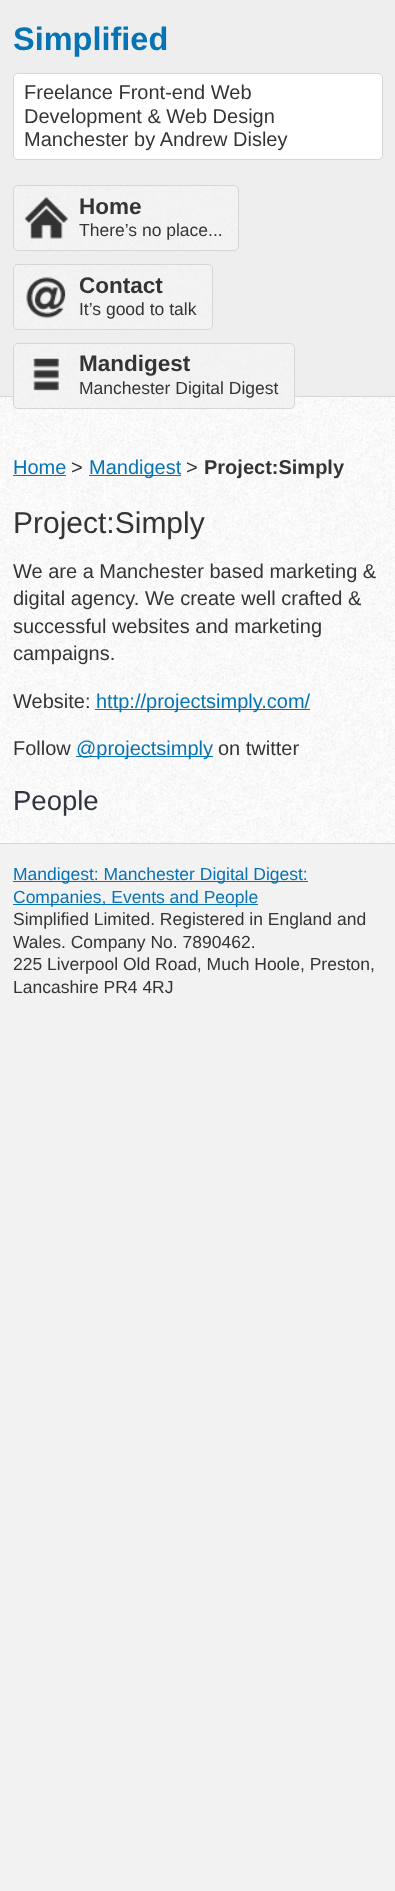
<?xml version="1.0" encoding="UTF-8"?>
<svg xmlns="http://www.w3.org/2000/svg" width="395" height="1891">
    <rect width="100%" height="100%" fill="#F2F2F2"/>
    <rect x="0" y="0" width="395" height="396" fill="#EEEEEE"/>
    <text x="13" y="50" font-family="Liberation Sans" font-size="32.5" font-weight="700" fill="#0673B4">Simplified</text>
    <rect x="13.5" y="73.5" width="369" height="86" rx="4.5" fill="#FFFFFF" stroke="#D6D6D6"/>
    <text font-family="Liberation Sans" font-size="20" fill="#343434">
        <tspan x="24" y="99">Freelance Front-end Web</tspan>
        <tspan x="24" y="123">Development &amp; Web Design</tspan>
        <tspan x="24" y="146">Manchester by Andrew Disley</tspan>
    </text>
    <image x="14" y="186" width="224" height="65" href="img_01.png"/>
    <rect x="13.5" y="185.5" width="225" height="65" rx="4.5" fill="none" stroke="#D6D6D6"/>
    <text x="79" y="214" font-family="Liberation Sans" font-size="22.5" font-weight="700" fill="#343434">Home</text>
    <text x="79" y="236" font-family="Liberation Sans" font-size="17.5" fill="#343434">There’s no place...</text>
    <image x="13" y="265" width="199" height="65" href="img_02.png"/>
    <rect x="13.5" y="264.5" width="199" height="65" rx="4.5" fill="none" stroke="#D6D6D6"/>
    <text x="79" y="293" font-family="Liberation Sans" font-size="22.5" font-weight="700" fill="#343434">Contact</text>
    <text x="79" y="315" font-family="Liberation Sans" font-size="17.5" fill="#343434">It’s good to talk</text>
    <image x="0" y="397" width="395" height="446" href="img_04.png"/>
    <rect x="0" y="396" width="395" height="1" fill="#D6D6D6"/>
    <image x="12" y="344" width="283" height="64" href="img_03.png"/>
    <rect x="13.5" y="343.5" width="281" height="65" rx="4.5" fill="none" stroke="#D6D6D6"/>
    <text x="79" y="371" font-family="Liberation Sans" font-size="22.5" font-weight="700" fill="#343434">Mandigest</text>
    <text x="79" y="394" font-family="Liberation Sans" font-size="17.5" fill="#343434">Manchester Digital Digest</text>
    <rect x="0" y="843" width="395" height="1" fill="#D6D6D6"/>
    <text x="13" y="474" font-family="Liberation Sans" font-size="20" fill="#0673B4">Home</text>
    <rect x="13" y="475" width="53" height="1" fill="#0673B4"/>
    <text x="71" y="474" font-family="Liberation Sans" font-size="20" fill="#343434">&gt;</text>
    <rect x="89" y="475" width="92" height="1" fill="#0673B4"/>
    <text x="89" y="474" font-family="Liberation Sans" font-size="20" fill="#0673B4">Mandigest</text>
    <text x="186" y="474" font-family="Liberation Sans" font-size="20" fill="#343434">&gt;</text>
    <text x="204" y="474" font-family="Liberation Sans" font-size="20" font-weight="700" fill="#343434">Project:Simply</text>
    <text x="13" y="533" font-family="Liberation Sans" font-size="30" fill="#343434">Project:Simply</text>
    <text font-family="Liberation Sans" font-size="20" fill="#343434">
        <tspan x="13" y="578">We are a Manchester based marketing &amp;</tspan>
        <tspan x="13" y="605">digital agency. We create well crafted &amp;</tspan>
        <tspan x="13" y="633">successful websites and marketing</tspan>
        <tspan x="13" y="660">campaigns.</tspan>
    </text>
    <text x="13" y="708" font-family="Liberation Sans" font-size="20" fill="#343434">Website:</text>
    <rect x="95" y="709" width="215" height="1" fill="#0673B4"/>
    <text x="96" y="708" font-family="Liberation Sans" font-size="20" fill="#0673B4">http://projectsimply.com/</text>
    <text x="13" y="755" font-family="Liberation Sans" font-size="20" fill="#343434">Follow</text>
    <rect x="76" y="756" width="137" height="1" fill="#0673B4"/>
    <text x="76" y="755" font-family="Liberation Sans" font-size="20" fill="#0673B4">@projectsimply</text>
    <text x="218" y="755" font-family="Liberation Sans" font-size="20" fill="#343434">on twitter</text>
    <text x="13" y="810" font-family="Liberation Sans" font-size="27.5" fill="#30343F">People</text>
    <rect x="13" y="881" width="295" height="1" fill="#0673B4"/>
    <text x="13" y="880" font-family="Liberation Sans" font-size="17.5" fill="#0673B4">Mandigest: Manchester Digital Digest:</text>
    <rect x="13" y="904" width="245" height="1" fill="#0673B4"/>
    <text x="13" y="903" font-family="Liberation Sans" font-size="17.5" fill="#0673B4">Companies, Events and People</text>
    <text font-family="Liberation Sans" font-size="17.5" fill="#343434">
        <tspan x="13" y="925">Simplified Limited. Registered in England and</tspan>
        <tspan x="13" y="948">Wales. Company No. 7890462.</tspan>
        <tspan x="13" y="970">225 Liverpool Old Road, Much Hoole, Preston,</tspan>
        <tspan x="13" y="993">Lancashire PR4 4RJ</tspan>
    </text>
</svg>
